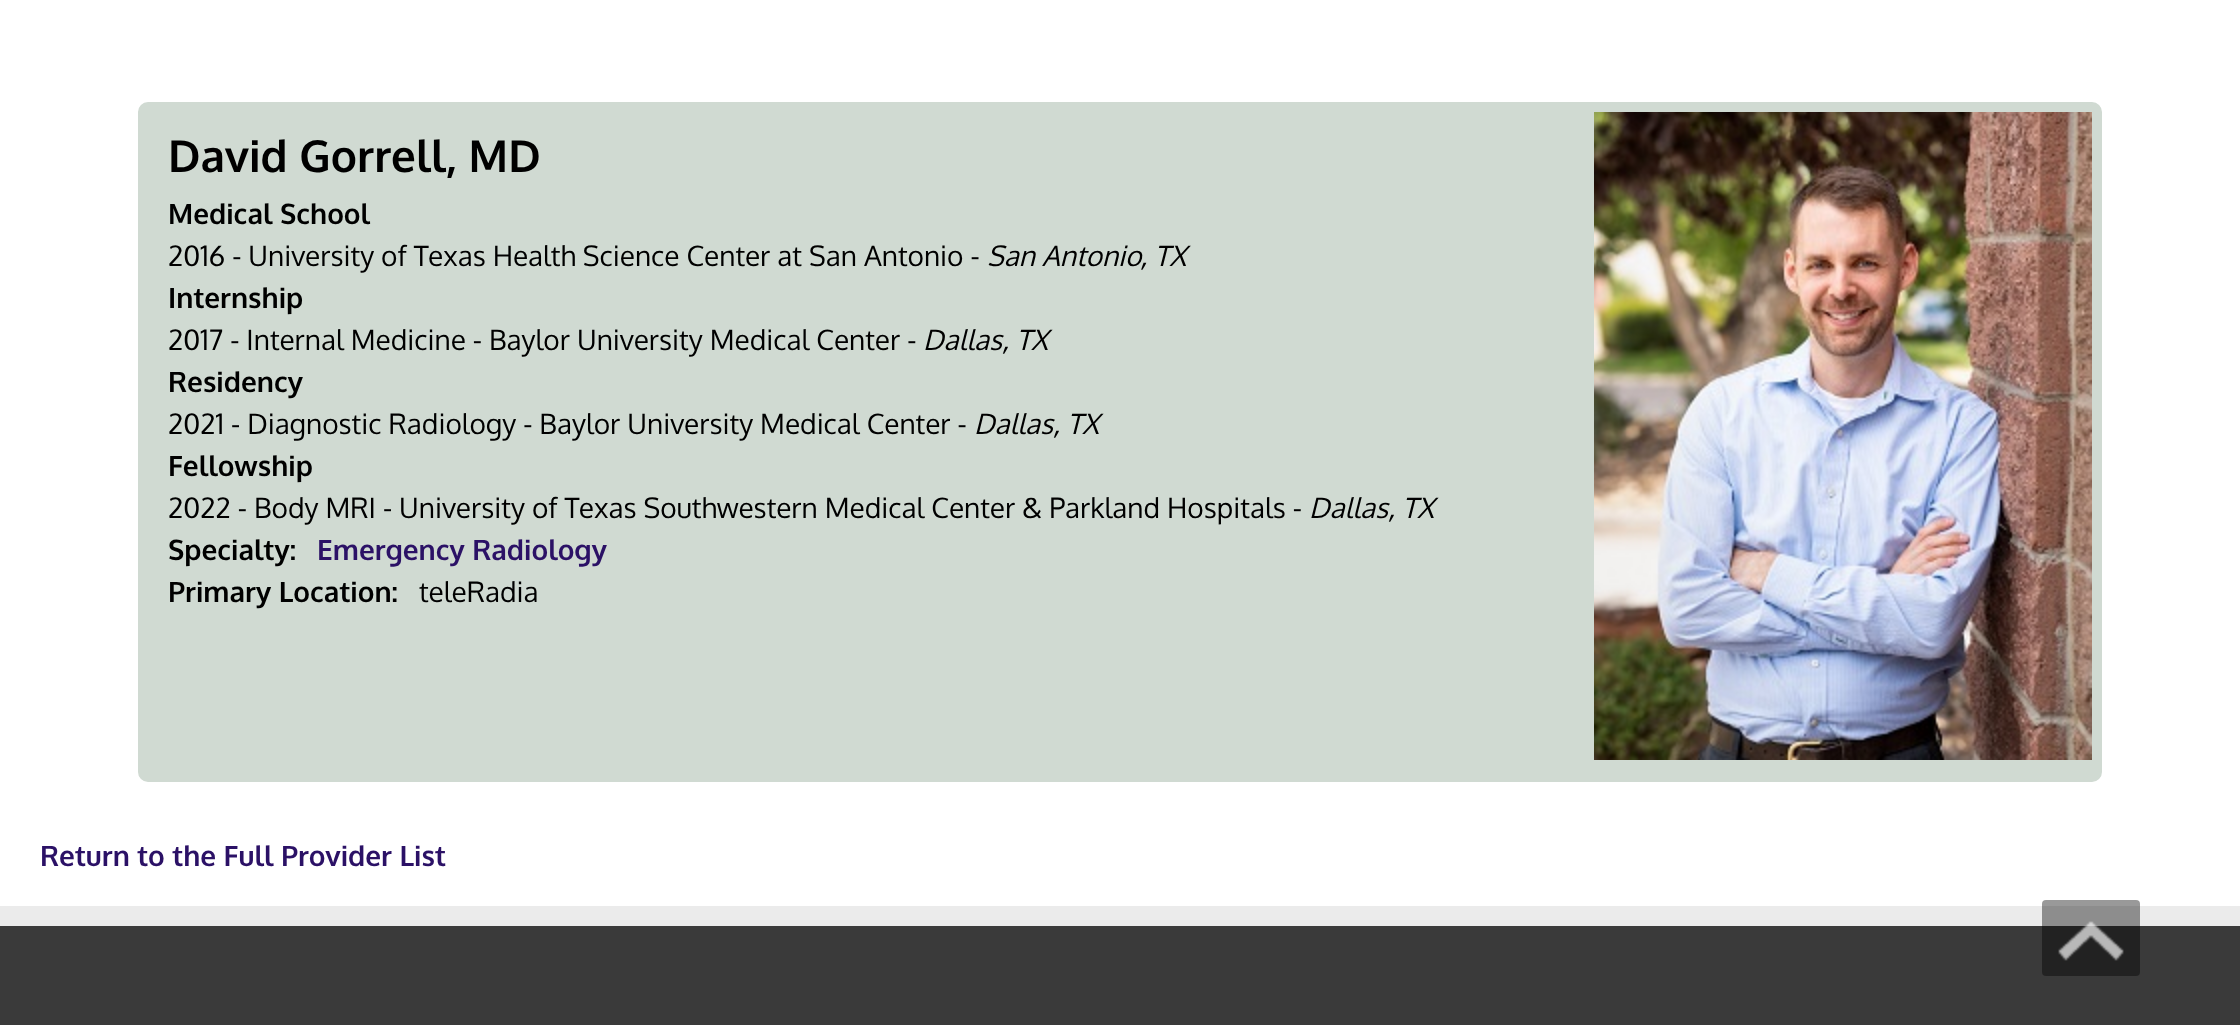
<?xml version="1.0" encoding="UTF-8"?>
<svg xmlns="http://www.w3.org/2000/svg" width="2240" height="1025">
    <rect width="100%" height="100%" fill="#FFFFFF"/>
    <rect x="143" y="107" width="1954" height="670" rx="5" fill="#D0DAD2" stroke="#D0DAD2" stroke-width="10"/>
    <text x="168" y="172" font-family="Oxygen" font-size="44" font-weight="700" fill="#000000">David Gorrell, MD</text>
    <text x="168" y="224" font-family="Oxygen" font-size="28" font-weight="700" fill="#000000">Medical School</text>
    <text x="168" y="266" font-family="Oxygen" font-size="28" fill="#000000">2016 - University of Texas Health Science Center at San Antonio -</text>
    <text x="987" y="266" font-family="Oxygen" font-size="28" font-style="italic" fill="#000000">San Antonio, TX</text>
    <text x="168" y="308" font-family="Oxygen" font-size="28" font-weight="700" fill="#000000">Internship</text>
    <text x="168" y="350" font-family="Oxygen" font-size="28" fill="#000000">2017 - Internal Medicine - Baylor University Medical Center -</text>
    <text x="923" y="350" font-family="Oxygen" font-size="28" font-style="italic" fill="#000000">Dallas, TX</text>
    <text x="168" y="392" font-family="Oxygen" font-size="28" font-weight="700" fill="#000000">Residency</text>
    <text x="168" y="434" font-family="Oxygen" font-size="28" fill="#000000">2021 - Diagnostic Radiology - Baylor University Medical Center -</text>
    <text x="974" y="434" font-family="Oxygen" font-size="28" font-style="italic" fill="#000000">Dallas, TX</text>
    <text x="168" y="476" font-family="Oxygen" font-size="28" font-weight="700" fill="#000000">Fellowship</text>
    <text x="168" y="518" font-family="Oxygen" font-size="28" fill="#000000">2022 - Body MRI - University of Texas Southwestern Medical Center &amp; Parkland Hospitals -</text>
    <text x="1309" y="518" font-family="Oxygen" font-size="28" font-style="italic" fill="#000000">Dallas, TX</text>
    <text x="168" y="560" font-family="Oxygen" font-size="28" font-weight="700" fill="#000000">Specialty:</text>
    <text x="317" y="560" font-family="Oxygen" font-size="28" font-weight="700" fill="#2B1166">Emergency Radiology</text>
    <text x="168" y="602" font-family="Oxygen" font-size="28" font-weight="700" fill="#000000">Primary Location:</text>
    <text x="419" y="602" font-family="Oxygen" font-size="28" fill="#000000">teleRadia</text>
    <image x="1594" y="112" width="498" height="648" href="img_01.png"/>
    <text x="40" y="866" font-family="Oxygen" font-size="28" font-weight="700" fill="#2B1166">Return to the Full Provider List</text>
    <rect x="0" y="906" width="2240" height="20" fill="#EBEBEB"/>
    <rect x="0" y="926" width="2240" height="99" fill="#3A3A3A"/>
    <rect x="2042" y="900" width="98" height="76" rx="4" fill="#000000" fill-opacity="0.4"/>
    <image x="2058" y="921" width="66" height="40" href="img_02.png"/>
</svg>
